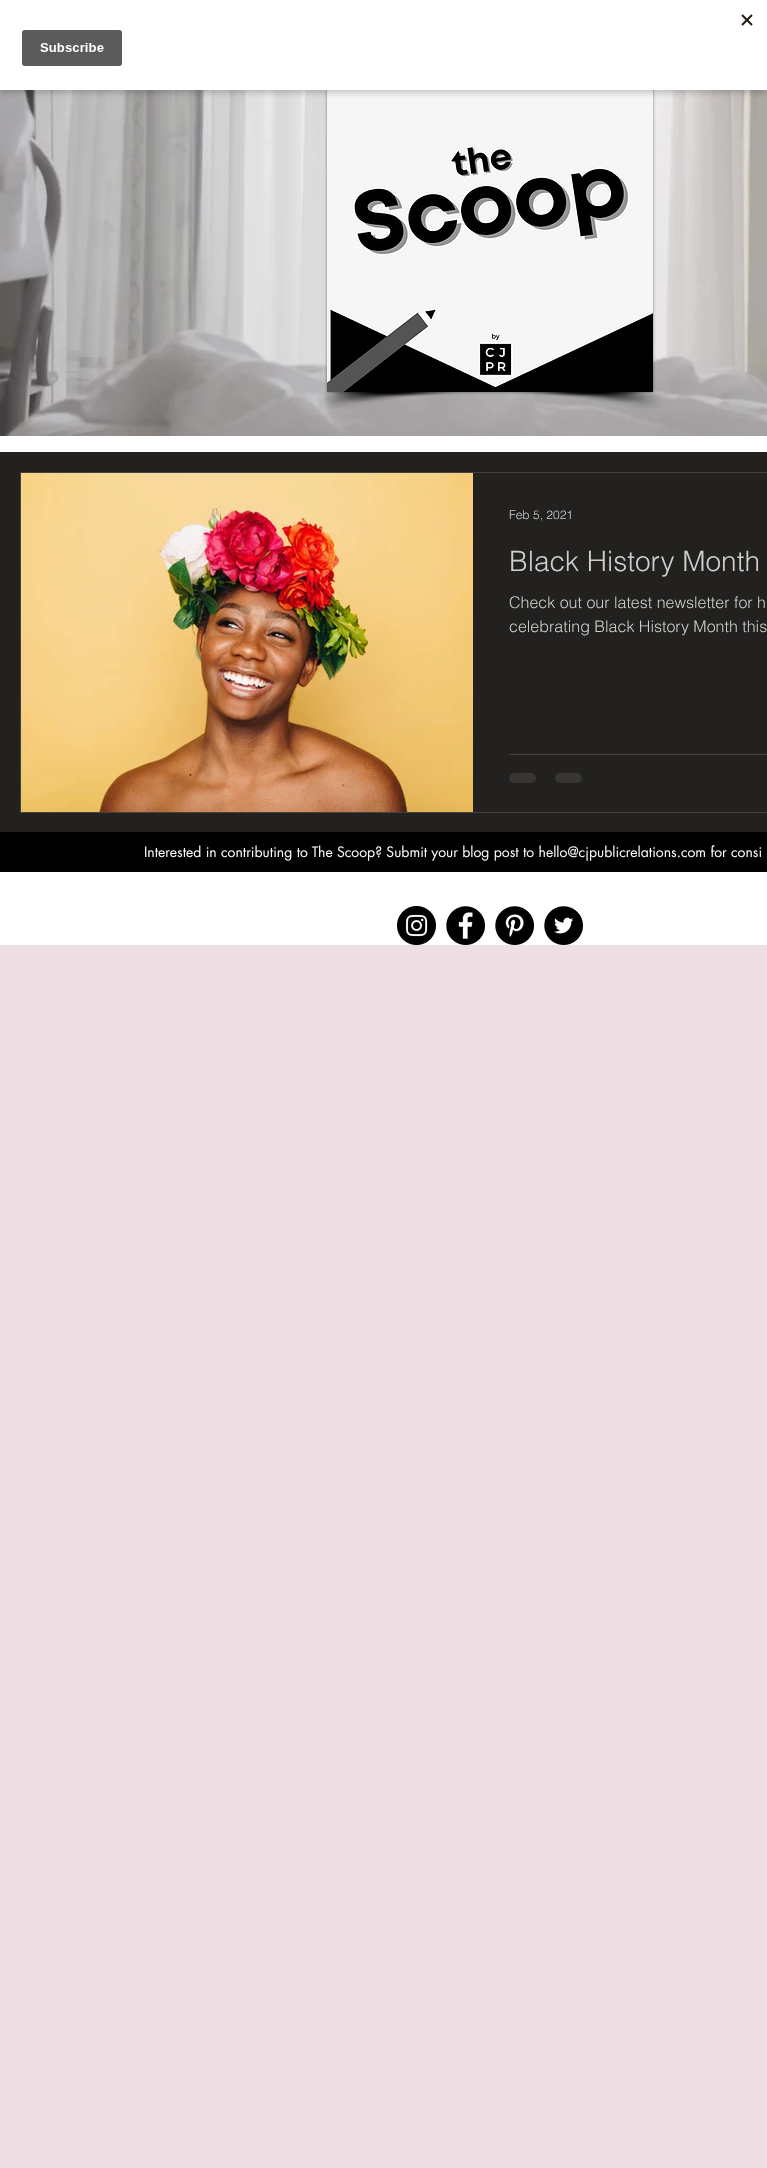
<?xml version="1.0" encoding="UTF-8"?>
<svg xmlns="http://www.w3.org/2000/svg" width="767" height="2168">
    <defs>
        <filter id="blur1" x="-50%" y="-200%" width="200%" height="500%"><feGaussianBlur stdDeviation="1.5"/></filter>
        <filter id="blur2" x="-50%" y="-200%" width="200%" height="500%"><feGaussianBlur stdDeviation="3"/></filter>
    </defs>
    <rect width="100%" height="100%" fill="#EDDFE4"/>
    <image x="0" y="90" width="767" height="346" href="img_05.png"/>
    <rect x="327" y="66" width="326" height="326" fill="#000000" fill-opacity="0.5" filter="url(#blur1)"/>
    <image x="327" y="90" width="326" height="302" href="img_02.png"/>
    <rect x="0" y="3" width="767" height="90" fill="#000000" fill-opacity="0.2" filter="url(#blur2)"/>
    <rect x="0" y="0" width="767" height="90" fill="#FFFFFF"/>
    <image x="22" y="14" width="731" height="52" href="img_01.png"/>
    <rect x="0" y="436" width="767" height="509" fill="#FFFFFF"/>
    <image x="318" y="392" width="147" height="17" href="img_03.png"/>
    <image x="513" y="392" width="148" height="17" href="img_04.png"/>
    <rect x="0" y="452" width="767" height="380" fill="#222120"/>
    <rect x="20.5" y="472.5" width="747" height="340" fill="none" stroke="#43423F"/>
    <image x="21" y="473" width="452" height="339" href="img_06.png"/>
    <text x="509" y="519" font-family="helvetica" font-size="12" font-weight="300" fill="#D0CFCD">Feb 5, 2021</text>
    <text x="509" y="571" font-family="helvetica" font-size="28" font-weight="300" fill="#D0CFCD">Black History Month</text>
    <text font-family="helvetica" font-size="16" font-weight="300" fill="#D0CFCD">
        <tspan x="509" y="608">Check out our latest newsletter for h</tspan>
        <tspan x="509" y="632">celebrating Black History Month this</tspan>
    </text>
    <rect x="509" y="754" width="258" height="1" fill="#454443"/>
    <rect x="509" y="773" width="27" height="10" rx="5" fill="#373635"/>
    <rect x="555" y="773" width="27" height="10" rx="5" fill="#373635"/>
    <rect x="0" y="832" width="767" height="40" fill="#000000"/>
    <text x="144" y="857" font-family="futura" font-size="14" fill="#FFFFFF">Interested in contributing to The Scoop? Submit your blog post to hello@cjpublicrelations.com for consi</text>
    <image x="397" y="906" width="39" height="39" href="img_07.png"/>
    <image x="446" y="906" width="39" height="39" href="img_08.png"/>
    <image x="495" y="906" width="39" height="39" href="img_09.png"/>
    <image x="544" y="906" width="39" height="39" href="img_10.png"/>
</svg>
